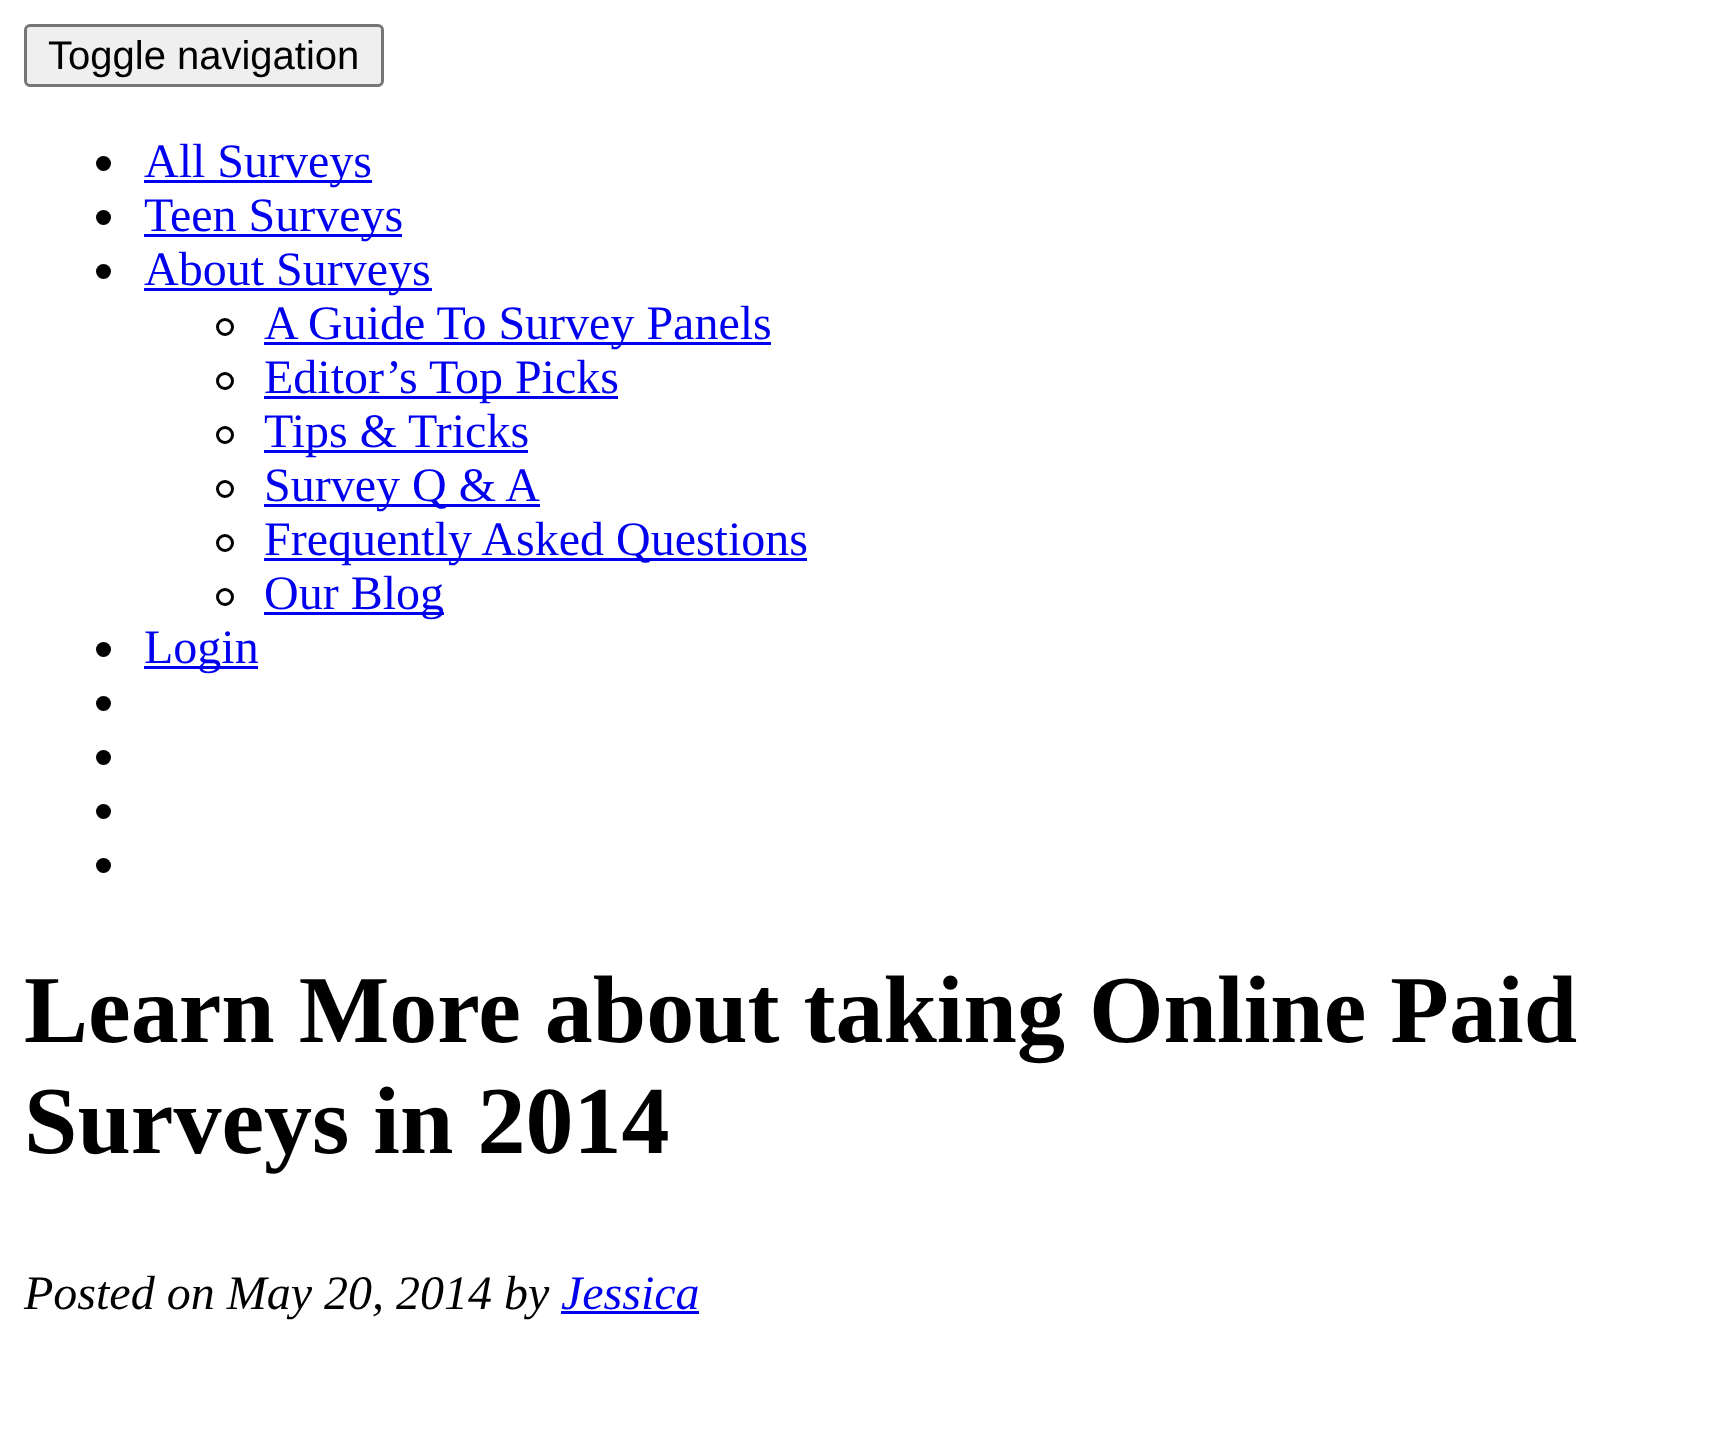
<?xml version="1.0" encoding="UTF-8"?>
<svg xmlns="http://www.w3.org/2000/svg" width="1720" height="1434">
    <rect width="100%" height="100%" fill="#FFFFFF"/>
    <rect x="25.5" y="25.5" width="357" height="60" rx="4.5" fill="#EFEFEF" stroke="#767676" stroke-width="3"/>
    <text x="48" y="69" font-family="Liberation Sans" font-size="40" fill="#000000">Toggle navigation</text>
    <circle cx="103.5" cy="163.5" r="7.5" fill="#000000"/>
    <rect x="144" y="180" width="228" height="3" fill="#0000EE"/>
    <text x="144" y="177" font-family="Liberation Serif" font-size="48" fill="#0000EE">All Surveys</text>
    <circle cx="103.5" cy="217.5" r="7.5" fill="#000000"/>
    <rect x="144" y="234" width="258" height="3" fill="#0000EE"/>
    <text x="144" y="231" font-family="Liberation Serif" font-size="48" fill="#0000EE">Teen Surveys</text>
    <circle cx="103.5" cy="271.5" r="7.5" fill="#000000"/>
    <rect x="144" y="288" width="288" height="3" fill="#0000EE"/>
    <text x="144" y="285" font-family="Liberation Serif" font-size="48" fill="#0000EE">About Surveys</text>
    <circle cx="225" cy="327" r="7.5" fill="none" stroke="#000000" stroke-width="3"/>
    <rect x="264" y="342" width="507" height="3" fill="#0000EE"/>
    <text x="264" y="339" font-family="Liberation Serif" font-size="48" fill="#0000EE">A Guide To Survey Panels</text>
    <circle cx="225" cy="381" r="7.5" fill="none" stroke="#000000" stroke-width="3"/>
    <rect x="264" y="396" width="354" height="3" fill="#0000EE"/>
    <text x="264" y="393" font-family="Liberation Serif" font-size="48" fill="#0000EE">Editor’s Top Picks</text>
    <circle cx="225" cy="435" r="7.5" fill="none" stroke="#000000" stroke-width="3"/>
    <rect x="264" y="450" width="264" height="3" fill="#0000EE"/>
    <text x="264" y="447" font-family="Liberation Serif" font-size="48" fill="#0000EE">Tips &amp; Tricks</text>
    <circle cx="225" cy="489" r="7.5" fill="none" stroke="#000000" stroke-width="3"/>
    <rect x="264" y="504" width="276" height="3" fill="#0000EE"/>
    <text x="264" y="501" font-family="Liberation Serif" font-size="48" fill="#0000EE">Survey Q &amp; A</text>
    <circle cx="225" cy="543" r="7.5" fill="none" stroke="#000000" stroke-width="3"/>
    <rect x="264" y="558" width="543" height="3" fill="#0000EE"/>
    <text x="264" y="555" font-family="Liberation Serif" font-size="48" fill="#0000EE">Frequently Asked Questions</text>
    <circle cx="225" cy="597" r="7.5" fill="none" stroke="#000000" stroke-width="3"/>
    <rect x="264" y="612" width="180" height="3" fill="#0000EE"/>
    <text x="264" y="609" font-family="Liberation Serif" font-size="48" fill="#0000EE">Our Blog</text>
    <circle cx="103.5" cy="649.5" r="7.5" fill="#000000"/>
    <rect x="144" y="666" width="114" height="3" fill="#0000EE"/>
    <text x="144" y="663" font-family="Liberation Serif" font-size="48" fill="#0000EE">Login</text>
    <circle cx="103.5" cy="703.5" r="7.5" fill="#000000"/>
    <circle cx="103.5" cy="757.5" r="7.5" fill="#000000"/>
    <circle cx="103.5" cy="811.5" r="7.5" fill="#000000"/>
    <circle cx="103.5" cy="865.5" r="7.5" fill="#000000"/>
    <text font-family="Liberation Serif" font-size="96" font-weight="700" fill="#000000">
        <tspan x="24" y="1042">Learn More about taking Online Paid</tspan>
        <tspan x="24" y="1153">Surveys in 2014</tspan>
    </text>
    <text x="24" y="1309" font-family="Liberation Serif" font-size="48" font-style="italic" fill="#000000">Posted on May 20, 2014 by</text>
    <text x="561" y="1309" font-family="Liberation Serif" font-size="48" font-style="italic" fill="#0000EE">Jessica</text>
    <rect x="561" y="1311" width="138" height="3" fill="#0000EE"/>
</svg>
